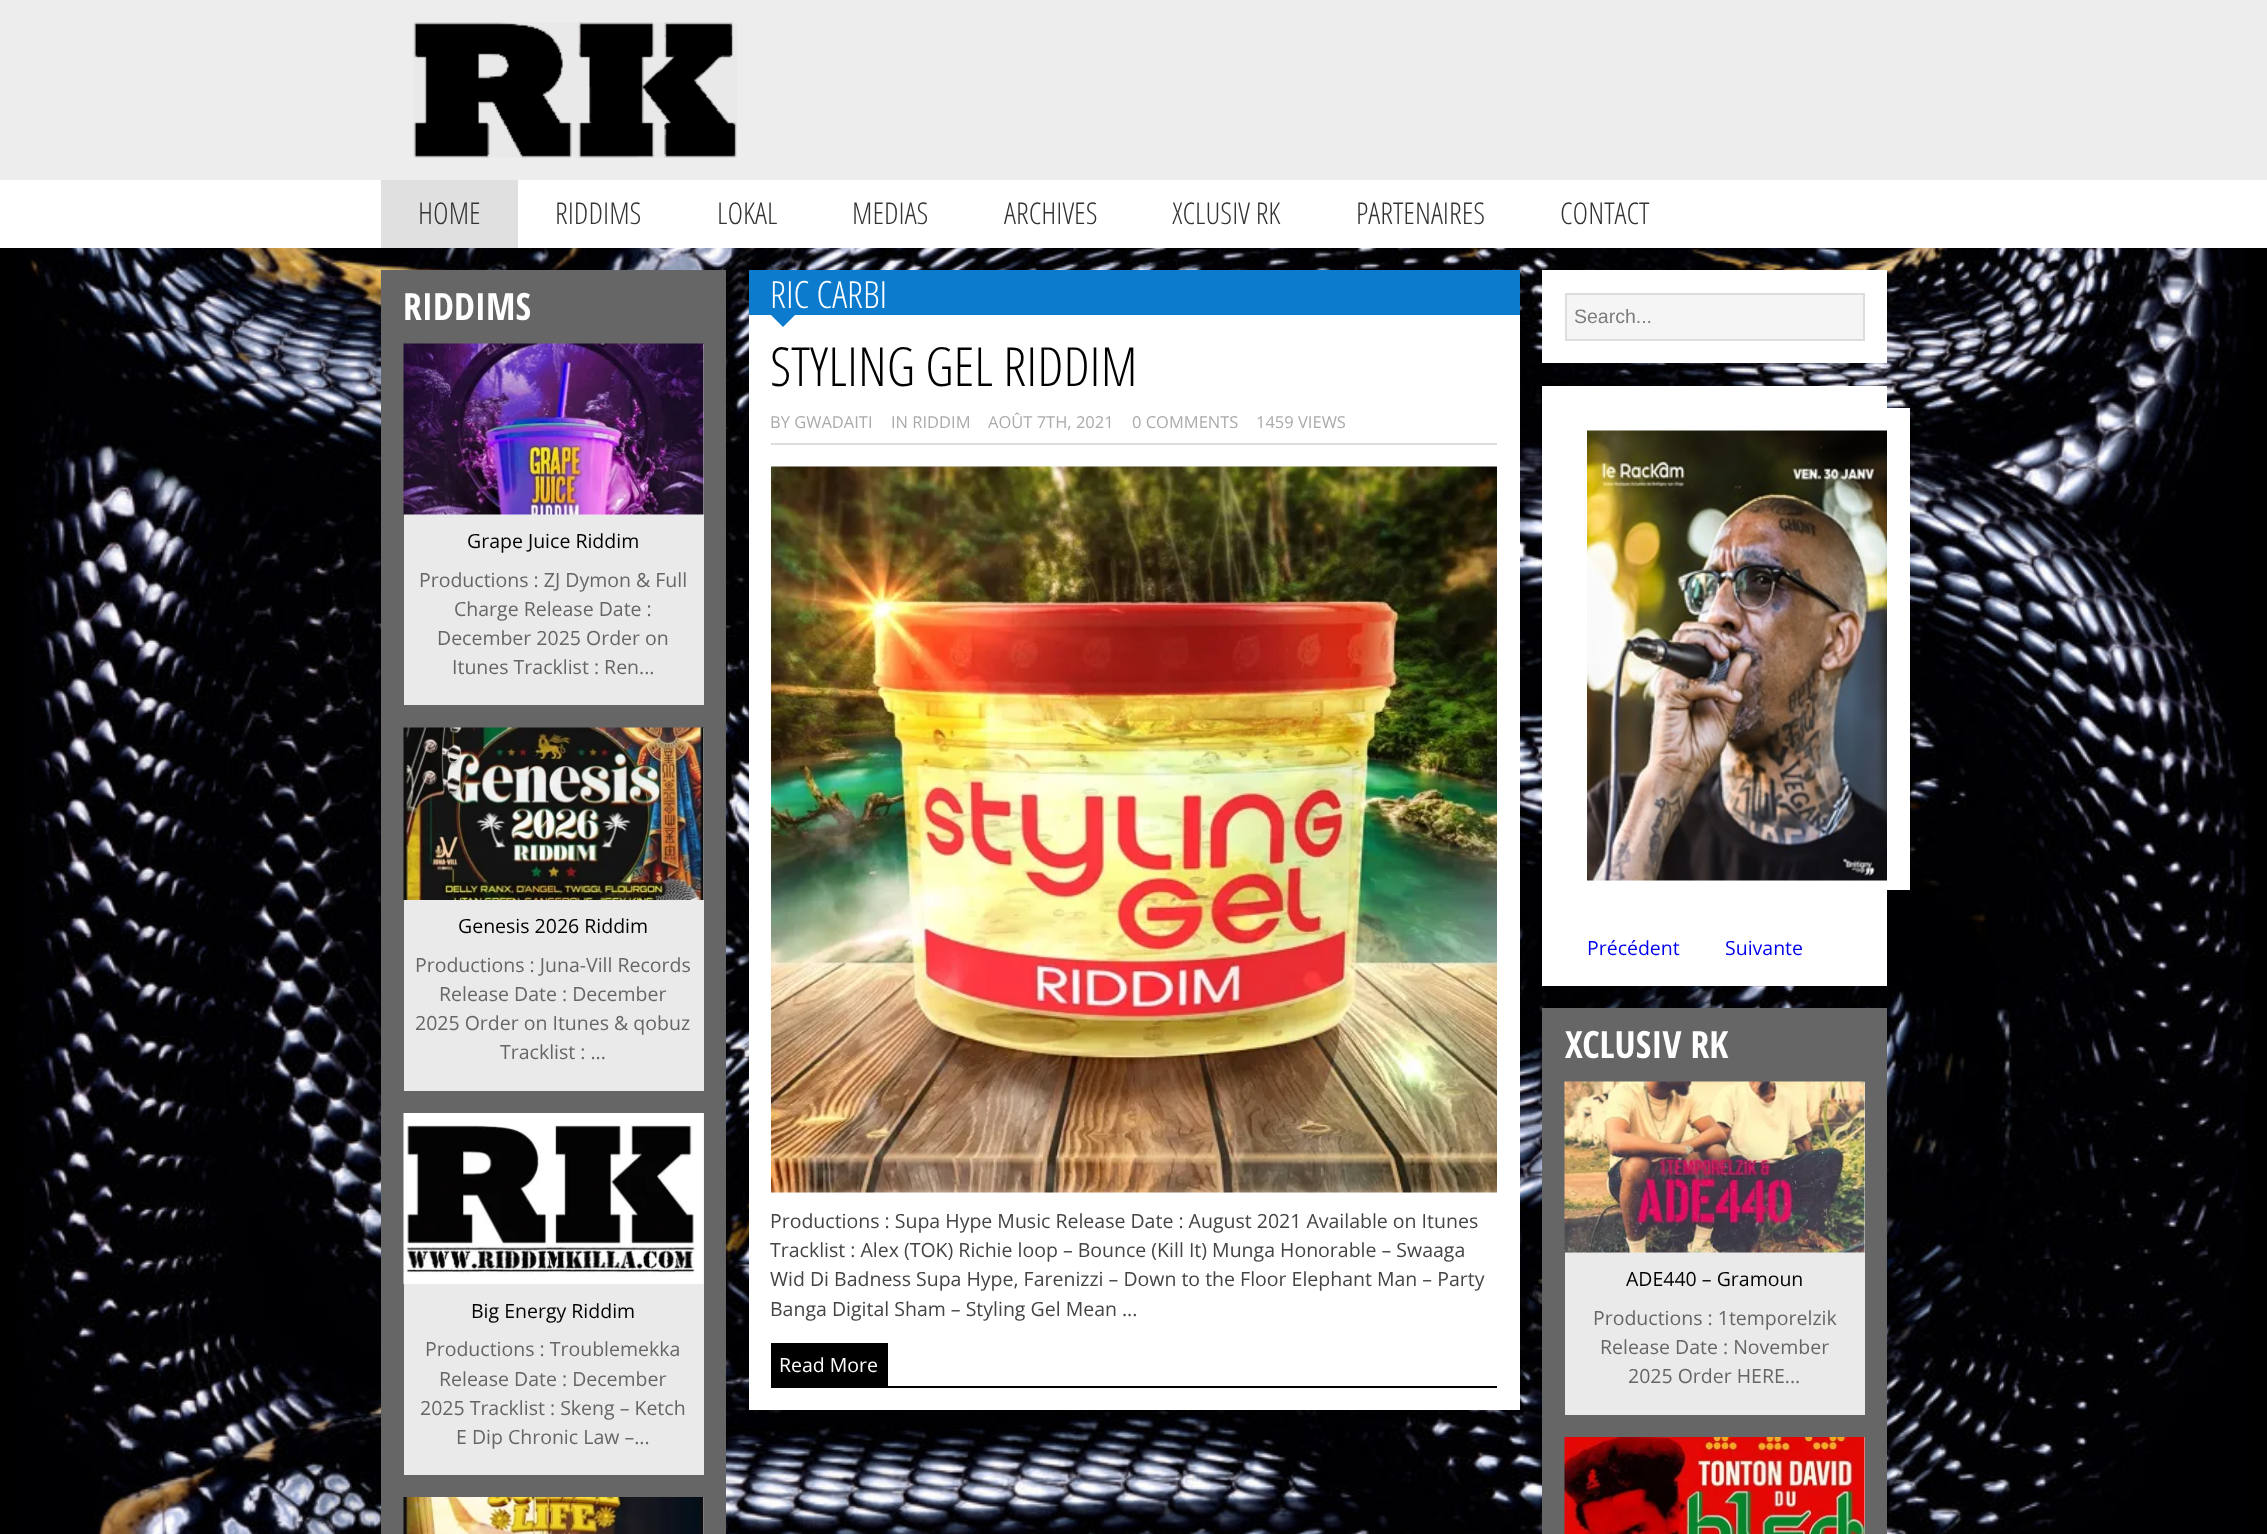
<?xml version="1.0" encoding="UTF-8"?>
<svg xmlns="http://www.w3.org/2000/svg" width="2267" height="1534">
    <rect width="100%" height="100%" fill="#000000"/>
    <image x="15" y="248" width="2237" height="1286" href="img_01.png"/>
    <rect x="0" y="0" width="2267" height="180" fill="#EDEDED"/>
    <image x="413" y="22" width="324" height="136" href="img_02.png"/>
    <rect x="0" y="180" width="2267" height="68" fill="#FFFFFF"/>
    <rect x="381" y="180" width="137" height="68" fill="#E0E0E0"/>
    <text x="418" y="224" font-family="Open Sans Condensed" font-size="30" font-weight="300" fill="#333333">HOME</text>
    <text x="555" y="224" font-family="Open Sans Condensed" font-size="30" font-weight="300" fill="#333333">RIDDIMS</text>
    <text x="717" y="224" font-family="Open Sans Condensed" font-size="30" font-weight="300" fill="#333333">LOKAL</text>
    <text x="852" y="224" font-family="Open Sans Condensed" font-size="30" font-weight="300" fill="#333333">MEDIAS</text>
    <text x="1004" y="224" font-family="Open Sans Condensed" font-size="30" font-weight="300" fill="#333333">ARCHIVES</text>
    <text x="1172" y="224" font-family="Open Sans Condensed" font-size="30" font-weight="300" fill="#333333">XCLUSIV RK</text>
    <text x="1356" y="224" font-family="Open Sans Condensed" font-size="30" font-weight="300" fill="#333333">PARTENAIRES</text>
    <text x="1560" y="224" font-family="Open Sans Condensed" font-size="30" font-weight="300" fill="#333333">CONTACT</text>
    <rect x="381" y="270" width="345" height="1264" fill="#666666"/>
    <text x="403" y="320" font-family="Open Sans Condensed" font-size="37.5" font-weight="700" fill="#FFFFFF">RIDDIMS</text>
    <rect x="404" y="344" width="300" height="361" fill="#EAEAEA"/>
    <image x="403" y="343" width="301" height="172" href="img_03.png"/>
    <text x="467" y="548" font-family="Open Sans" font-size="19.5" fill="#000000">Grape Juice Riddim</text>
    <text x="419" y="587" font-family="Open Sans" font-size="19.5" fill="#666666">Productions : ZJ Dymon &amp; Full</text>
    <text x="454" y="616" font-family="Open Sans" font-size="19.5" fill="#666666">Charge Release Date :</text>
    <text x="437" y="645" font-family="Open Sans" font-size="19.5" fill="#666666">December 2025 Order on</text>
    <text x="452" y="674" font-family="Open Sans" font-size="19.5" fill="#666666">Itunes Tracklist : Ren...</text>
    <rect x="404" y="728" width="300" height="363" fill="#EAEAEA"/>
    <image x="403" y="727" width="301" height="173" href="img_04.png"/>
    <text x="458" y="933" font-family="Open Sans" font-size="19.5" fill="#000000">Genesis 2026 Riddim</text>
    <text x="415" y="972" font-family="Open Sans" font-size="19.5" fill="#666666">Productions : Juna-Vill Records</text>
    <text x="439" y="1001" font-family="Open Sans" font-size="19.5" fill="#666666">Release Date : December</text>
    <text x="415" y="1030" font-family="Open Sans" font-size="19.5" fill="#666666">2025 Order on Itunes &amp; qobuz</text>
    <text x="500" y="1059" font-family="Open Sans" font-size="19.5" fill="#666666">Tracklist : ...</text>
    <rect x="404" y="1113" width="300" height="362" fill="#EAEAEA"/>
    <image x="403" y="1113" width="301" height="171" href="img_05.png"/>
    <text x="471" y="1318" font-family="Open Sans" font-size="19.5" fill="#000000">Big Energy Riddim</text>
    <text x="425" y="1356" font-family="Open Sans" font-size="19.5" fill="#666666">Productions : Troublemekka</text>
    <text x="439" y="1386" font-family="Open Sans" font-size="19.5" fill="#666666">Release Date : December</text>
    <text x="420" y="1415" font-family="Open Sans" font-size="19.5" fill="#666666">2025 Tracklist : Skeng – Ketch</text>
    <text x="456" y="1444" font-family="Open Sans" font-size="19.5" fill="#666666">E Dip Chronic Law –...</text>
    <rect x="703" y="1497" width="1" height="37" fill="#EAEAEA"/>
    <image x="403" y="1497" width="301" height="37" href="img_06.png"/>
    <rect x="749" y="270" width="771" height="45" fill="#0C7BCE"/>
    <text x="770" y="308" font-family="Open Sans Condensed" font-size="37.5" font-weight="300" fill="#FFFFFF">RIC CARBI</text>
    <rect x="749" y="315" width="771" height="1095" fill="#FFFFFF"/>
    <path d="M 771 315 H 795 L 783 327 Z" fill="#0C7BCE"/>
    <text x="770" y="386" font-family="Open Sans Condensed" font-size="54" font-weight="300" fill="#000000">STYLING GEL RIDDIM</text>
    <rect x="771" y="443" width="726" height="2" fill="#DDDDDD"/>
    <text x="770" y="428" font-family="Open Sans" font-size="16.5" fill="#AAAAAA">BY GWADAITI</text>
    <text x="891" y="428" font-family="Open Sans" font-size="16.5" fill="#AAAAAA">IN RIDDIM</text>
    <text x="988" y="428" font-family="Open Sans" font-size="16.5" fill="#AAAAAA">AOÛT 7TH, 2021</text>
    <text x="1132" y="428" font-family="Open Sans" font-size="16.5" fill="#AAAAAA">0 COMMENTS</text>
    <text x="1256" y="428" font-family="Open Sans" font-size="16.5" fill="#AAAAAA">1459 VIEWS</text>
    <image x="771" y="466" width="726" height="727" href="img_07.png"/>
    <text font-family="Open Sans" font-size="19.5" fill="#444444">
        <tspan x="770" y="1228">Productions : Supa Hype Music Release Date : August 2021 Available on Itunes</tspan>
        <tspan x="770" y="1257">Tracklist : Alex (TOK) Richie loop – Bounce (Kill It) Munga Honorable – Swaaga</tspan>
        <tspan x="770" y="1286">Wid Di Badness Supa Hype, Farenizzi – Down to the Floor Elephant Man – Party</tspan>
        <tspan x="770" y="1316">Banga Digital Sham – Styling Gel Mean ...</tspan>
    </text>
    <rect x="888" y="1386" width="609" height="2" fill="#000000"/>
    <rect x="771" y="1343" width="117" height="45" fill="#000000"/>
    <text x="779" y="1372" font-family="Open Sans" font-size="19.5" fill="#FFFFFF">Read More</text>
    <rect x="1542" y="270" width="345" height="93" fill="#FFFFFF"/>
    <rect x="1566" y="294" width="298" height="46" fill="#F5F5F5" stroke="#DDDDDD" stroke-width="2"/>
    <text x="1574" y="323" font-family="Liberation Sans" font-size="19.5" fill="#7C7C7C">Search...</text>
    <rect x="1542" y="386" width="345" height="600" fill="#FFFFFF"/>
    <rect x="1887" y="408" width="23" height="482" fill="#FFFFFF"/>
    <image x="1587" y="430" width="300" height="451" href="img_08.png"/>
    <text x="1587" y="955" font-family="Open Sans" font-size="19.5" fill="#0000EE">Précédent</text>
    <text x="1725" y="955" font-family="Open Sans" font-size="19.5" fill="#0000EE">Suivante</text>
    <rect x="1542" y="1008" width="345" height="526" fill="#666666"/>
    <text x="1565" y="1058" font-family="Open Sans Condensed" font-size="37.5" font-weight="700" fill="#FFFFFF">XCLUSIV RK</text>
    <rect x="1565" y="1082" width="300" height="333" fill="#EAEAEA"/>
    <image x="1564" y="1081" width="301" height="172" href="img_09.png"/>
    <text x="1626" y="1286" font-family="Open Sans" font-size="19.5" fill="#000000">ADE440 – Gramoun</text>
    <text x="1593" y="1325" font-family="Open Sans" font-size="19.5" fill="#666666">Productions : 1temporelzik</text>
    <text x="1600" y="1354" font-family="Open Sans" font-size="19.5" fill="#666666">Release Date : November</text>
    <text x="1628" y="1383" font-family="Open Sans" font-size="19.5" fill="#666666">2025 Order HERE...</text>
    <rect x="1864" y="1437" width="1" height="97" fill="#EAEAEA"/>
    <image x="1564" y="1437" width="301" height="97" href="img_10.png"/>
</svg>
